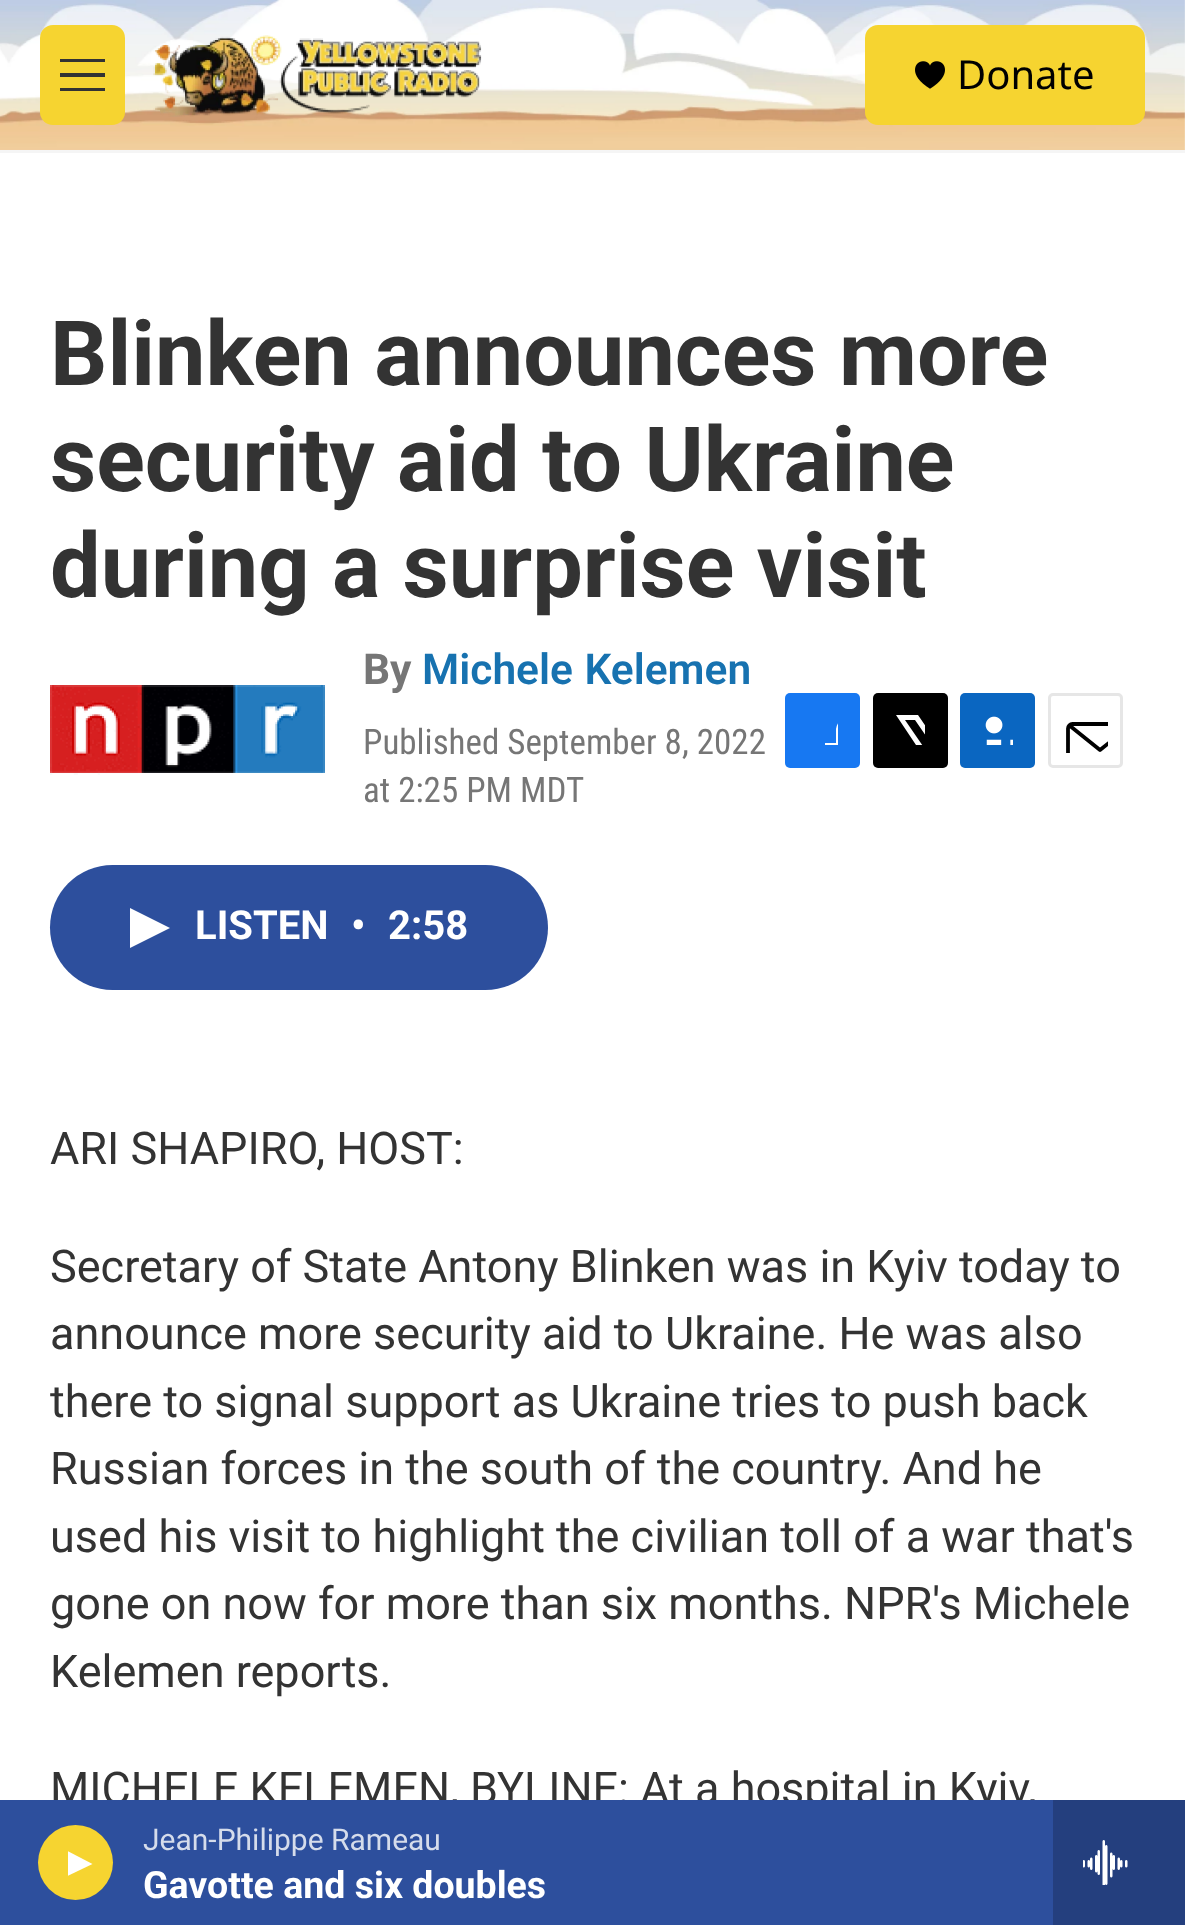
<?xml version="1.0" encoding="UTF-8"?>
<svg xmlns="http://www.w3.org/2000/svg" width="1185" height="1925">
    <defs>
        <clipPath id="clip1"><rect x="68" y="1850" width="25" height="28"/></clipPath>
        <clipPath id="clip2"><rect x="808" y="715" width="30" height="30"/></clipPath>
        <clipPath id="clip3"><rect x="895" y="715" width="30" height="30"/></clipPath>
        <clipPath id="clip4"><rect x="1063" y="708" width="45" height="45"/></clipPath>
    </defs>
    <rect width="100%" height="100%" fill="#FFFFFF"/>
    <rect x="0" y="150" width="1185" height="3" fill="#F5F5F5"/>
    <image x="0" y="0" width="1185" height="150" href="img_01.png"/>
    <rect x="40" y="25" width="85" height="100" rx="13" fill="#F6D430"/>
    <path d="M 60 77 V 73 H 105 V 77 Z M 60 62 V 59 H 105 V 62 Z M 60 91 V 88 H 105 V 91 Z" fill="#333333" fill-rule="evenodd"/>
    <image x="153" y="35" width="329" height="82" href="img_02.png"/>
    <rect x="865" y="25" width="280" height="100" rx="13" fill="#F6D430"/>
    <image x="915" y="61" width="30" height="28" href="img_03.png"/>
    <text x="957" y="89" font-family="Noto Sans" font-size="40" fill="#000000">Donate</text>
    <text x="50" y="1804" font-family="Roboto" font-size="45" fill="#333333">MICHELE KELEMEN, BYLINE: At a hospital in Kyiv,</text>
    <rect x="0" y="1800" width="1053" height="125" fill="#2D4F9D"/>
    <circle cx="75.5" cy="1862.5" r="37.5" fill="#F6D430"/>
    <g clip-path="url(#clip1)">
        <path d="M 67.5 1851 L 92.5 1864 L 67.5 1876 Z" fill="#FFFFFF"/>
    </g>
    <text x="143" y="1850" font-family="Roboto" font-size="30" fill="#D5DCEB">Jean-Philippe Rameau</text>
    <text x="143" y="1898" font-family="'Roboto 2'" font-size="37.5" font-weight="700" fill="#FFFFFF">Gavotte and six doubles</text>
    <rect x="1053" y="1800" width="132" height="125" fill="#243F7E"/>
    <image x="1083" y="1840" width="45" height="45" href="img_04.png"/>
    <text font-family="Roboto" font-size="90" font-weight="700" fill="#333333">
        <tspan x="50" y="385">Blinken announces more</tspan>
        <tspan x="50" y="491">security aid to Ukraine</tspan>
        <tspan x="50" y="597">during a surprise visit</tspan>
    </text>
    <image x="50" y="685" width="275" height="90" href="img_05.png"/>
    <text x="363" y="684" font-family="Roboto" font-size="42.5" font-weight="700" fill="#767676">By</text>
    <text x="422" y="684" word-spacing="1" font-family="Roboto" font-size="42.5" font-weight="600" fill="#1772B0">Michele Kelemen</text>
    <text font-family="Roboto Condensed" font-size="35" fill="#767676">
        <tspan x="363" y="754">Published September 8, 2022</tspan>
        <tspan x="363" y="802">at 2:25 PM MDT</tspan>
    </text>
    <rect x="785" y="693" width="75" height="75" rx="5" fill="#1778F2"/>
    <g clip-path="url(#clip2)">
        <path d="M 849 768 H 836 V 755 H 825 V 743 H 836 V 729 C 838 717 849 715 860 717 V 728 C 846 728 849 732 849 743 H 860 V 749 L 859 755 H 849 Z" fill="#FFFFFF"/>
    </g>
    <rect x="873" y="693" width="75" height="75" rx="5" fill="#000000"/>
    <g clip-path="url(#clip3)">
        <path d="M 939 747 L 948 760 C 948 762 948 764 947 766 L 915 720 H 905 L 938 768 H 932 L 927 761 L 921 768 H 915 L 924 757 L 896 715 H 918 L 937 743 L 948 730 V 737 Z" fill="#FFFFFF"/>
    </g>
    <rect x="960" y="693" width="75" height="75" rx="5" fill="#0A66C1"/>
    <image x="985" y="716" width="28" height="29" href="img_06.png"/>
    <rect x="1049.5" y="694.5" width="72" height="72" rx="3.5" fill="none" stroke="#E6E6E6" stroke-width="3"/>
    <g clip-path="url(#clip4)">
        <path d="M 1132 762.5 C 1132 765 1130 767 1127.5 767 H 1072.5 C 1070 767 1068 765 1068 762.5 V 728.5 C 1068 726 1070 724 1072.5 724 H 1127.5 C 1130 724 1132 726 1132 728.5 Z M 1130.5 725.5 L 1100 750 L 1069.5 725.5" fill="none" stroke="#000000" stroke-width="3.8" stroke-linecap="round" stroke-linejoin="round"/>
    </g>
    <rect x="50" y="865" width="498" height="125" rx="62.5" fill="#2D4F9D"/>
    <path d="M 130 908 L 170 928 L 130 948 Z" fill="#FFFFFF"/>
    <text x="195" y="939" font-family="'Roboto 2'" font-size="40" font-weight="700" fill="#FFFFFF">LISTEN</text>
    <text x="351" y="939" font-family="'Roboto 2'" font-size="40" font-weight="700" fill="#FFFFFF">•</text>
    <text x="388" y="939" font-family="'Roboto 2'" font-size="40" font-weight="700" fill="#FFFFFF">2:58</text>
    <text x="50" y="1164" font-family="Roboto" font-size="45" fill="#333333">ARI SHAPIRO, HOST:</text>
    <text font-family="Roboto" font-size="45" fill="#333333">
        <tspan x="50" y="1282">Secretary of State Antony Blinken was in Kyiv today to</tspan>
        <tspan x="50" y="1349">announce more security aid to Ukraine. He was also</tspan>
        <tspan x="50" y="1417">there to signal support as Ukraine tries to push back</tspan>
        <tspan x="50" y="1484">Russian forces in the south of the country. And he</tspan>
        <tspan x="50" y="1552">used his visit to highlight the civilian toll of a war that's</tspan>
        <tspan x="50" y="1619">gone on now for more than six months. NPR's Michele</tspan>
        <tspan x="50" y="1687">Kelemen reports.</tspan>
    </text>
</svg>
